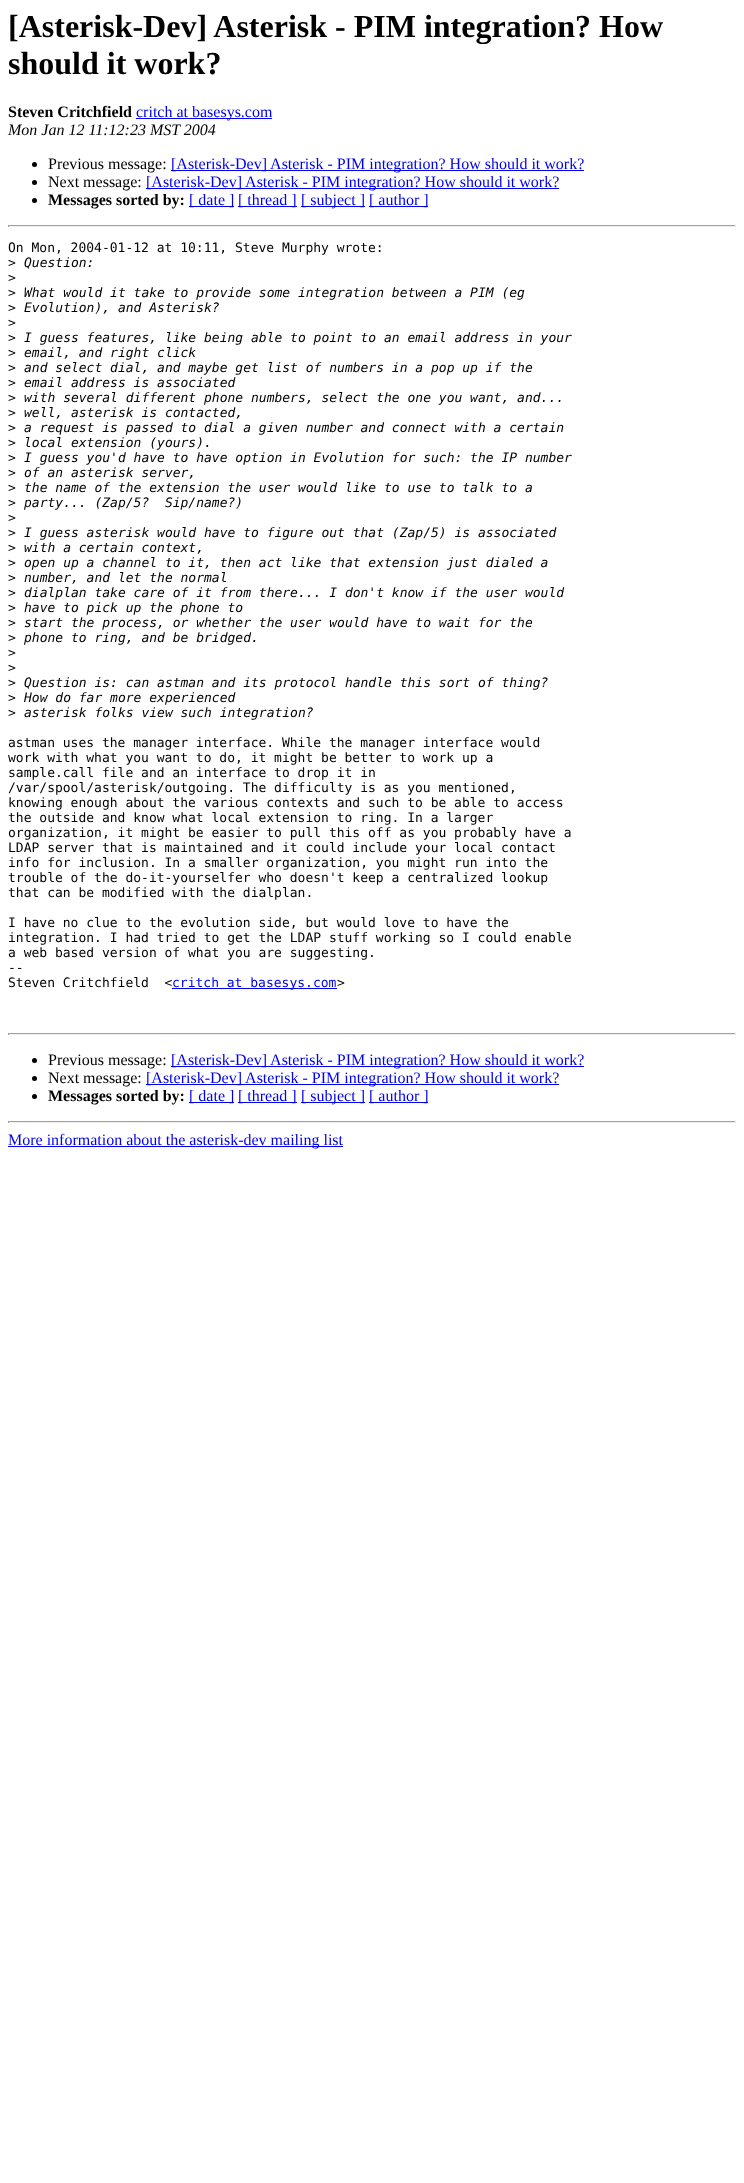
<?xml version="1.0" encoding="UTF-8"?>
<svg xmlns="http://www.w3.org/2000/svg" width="744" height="2183">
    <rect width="100%" height="100%" fill="#FFFFFF"/>
    <text font-family="Liberation Serif" font-size="32" font-weight="700" fill="#000000">
        <tspan x="8" y="37">[Asterisk-Dev] Asterisk - PIM integration? How</tspan>
        <tspan x="8" y="74">should it work?</tspan>
    </text>
    <text x="8" y="117" font-family="Liberation Serif" font-size="16" font-weight="700" fill="#000000">Steven Critchfield</text>
    <rect x="136" y="118" width="136" height="1" fill="#0000EE"/>
    <text x="136" y="117" font-family="Liberation Serif" font-size="16" fill="#0000EE">critch at basesys.com</text>
    <text x="8" y="135" font-family="Liberation Serif" font-size="16" font-style="italic" fill="#000000">Mon Jan 12 11:12:23 MST 2004</text>
    <circle cx="34.5" cy="164.5" r="2.5" fill="#000000"/>
    <text x="48" y="169" font-family="Liberation Serif" font-size="16" fill="#000000">Previous message:</text>
    <rect x="171" y="170" width="413" height="1" fill="#0000EE"/>
    <text x="171" y="169" font-family="Liberation Serif" font-size="16" fill="#0000EE">[Asterisk-Dev] Asterisk - PIM integration? How should it work?</text>
    <circle cx="34.5" cy="182.5" r="2.5" fill="#000000"/>
    <text x="48" y="187" font-family="Liberation Serif" font-size="16" fill="#000000">Next message:</text>
    <rect x="146" y="188" width="413" height="1" fill="#0000EE"/>
    <text x="146" y="187" font-family="Liberation Serif" font-size="16" fill="#0000EE">[Asterisk-Dev] Asterisk - PIM integration? How should it work?</text>
    <circle cx="34.5" cy="200.5" r="2.5" fill="#000000"/>
    <text x="48" y="205" font-family="Liberation Serif" font-size="16" font-weight="700" fill="#000000">Messages sorted by:</text>
    <rect x="189" y="206" width="45" height="1" fill="#0000EE"/>
    <text x="189" y="205" font-family="Liberation Serif" font-size="16" fill="#0000EE">[ date ]</text>
    <rect x="238" y="206" width="59" height="1" fill="#0000EE"/>
    <text x="238" y="205" font-family="Liberation Serif" font-size="16" fill="#0000EE">[ thread ]</text>
    <rect x="301" y="206" width="64" height="1" fill="#0000EE"/>
    <text x="301" y="205" font-family="Liberation Serif" font-size="16" fill="#0000EE">[ subject ]</text>
    <rect x="369" y="206" width="59" height="1" fill="#0000EE"/>
    <text x="369" y="205" font-family="Liberation Serif" font-size="16" fill="#0000EE">[ author ]</text>
    <rect x="8" y="225" width="728" height="1" fill="#9F9F9F"/>
    <rect x="735" y="225" width="1" height="2" fill="#EEEEEE"/>
    <rect x="8" y="226" width="728" height="1" fill="#EEEEEE"/>
    <rect x="8" y="225" width="1" height="2" fill="#9F9F9F"/>
    <text font-family="DejaVu Sans Mono" font-size="13" fill="#000000">
        <tspan x="8" y="252">On Mon, 2004-01-12 at 10:11, Steve Murphy wrote:</tspan>
        <tspan x="8" y="267">&gt;</tspan>
    </text>
    <text x="24" y="267" font-family="DejaVu Sans Mono" font-size="13" font-style="italic" fill="#000000">Question:</text>
    <text font-family="DejaVu Sans Mono" font-size="13" fill="#000000">
        <tspan x="8" y="282">&gt;</tspan>
        <tspan x="8" y="297">&gt;</tspan>
    </text>
    <text x="24" y="297" font-family="DejaVu Sans Mono" font-size="13" font-style="italic" fill="#000000">What would it take to provide some integration between a PIM (eg</text>
    <text x="8" y="312" font-family="DejaVu Sans Mono" font-size="13" fill="#000000">&gt;</text>
    <text x="24" y="312" font-family="DejaVu Sans Mono" font-size="13" font-style="italic" fill="#000000">Evolution), and Asterisk?</text>
    <text font-family="DejaVu Sans Mono" font-size="13" fill="#000000">
        <tspan x="8" y="327">&gt;</tspan>
        <tspan x="8" y="342">&gt;</tspan>
    </text>
    <text x="24" y="342" font-family="DejaVu Sans Mono" font-size="13" font-style="italic" fill="#000000">I guess features, like being able to point to an email address in your</text>
    <text x="8" y="357" font-family="DejaVu Sans Mono" font-size="13" fill="#000000">&gt;</text>
    <text x="24" y="357" font-family="DejaVu Sans Mono" font-size="13" font-style="italic" fill="#000000">email, and right click</text>
    <text x="8" y="372" font-family="DejaVu Sans Mono" font-size="13" fill="#000000">&gt;</text>
    <text x="24" y="372" font-family="DejaVu Sans Mono" font-size="13" font-style="italic" fill="#000000">and select dial, and maybe get list of numbers in a pop up if the</text>
    <text x="8" y="387" font-family="DejaVu Sans Mono" font-size="13" fill="#000000">&gt;</text>
    <text x="24" y="387" font-family="DejaVu Sans Mono" font-size="13" font-style="italic" fill="#000000">email address is associated</text>
    <text x="8" y="402" font-family="DejaVu Sans Mono" font-size="13" fill="#000000">&gt;</text>
    <text x="24" y="402" font-family="DejaVu Sans Mono" font-size="13" font-style="italic" fill="#000000">with several different phone numbers, select the one you want, and...</text>
    <text x="8" y="417" font-family="DejaVu Sans Mono" font-size="13" fill="#000000">&gt;</text>
    <text x="24" y="417" font-family="DejaVu Sans Mono" font-size="13" font-style="italic" fill="#000000">well, asterisk is contacted,</text>
    <text x="8" y="432" font-family="DejaVu Sans Mono" font-size="13" fill="#000000">&gt;</text>
    <text x="24" y="432" font-family="DejaVu Sans Mono" font-size="13" font-style="italic" fill="#000000">a request is passed to dial a given number and connect with a certain</text>
    <text x="8" y="447" font-family="DejaVu Sans Mono" font-size="13" fill="#000000">&gt;</text>
    <text x="24" y="447" font-family="DejaVu Sans Mono" font-size="13" font-style="italic" fill="#000000">local extension (yours).</text>
    <text x="8" y="462" font-family="DejaVu Sans Mono" font-size="13" fill="#000000">&gt;</text>
    <text x="24" y="462" font-family="DejaVu Sans Mono" font-size="13" font-style="italic" fill="#000000">I guess you'd have to have option in Evolution for such: the IP number</text>
    <text x="8" y="477" font-family="DejaVu Sans Mono" font-size="13" fill="#000000">&gt;</text>
    <text x="24" y="477" font-family="DejaVu Sans Mono" font-size="13" font-style="italic" fill="#000000">of an asterisk server,</text>
    <text x="8" y="492" font-family="DejaVu Sans Mono" font-size="13" fill="#000000">&gt;</text>
    <text x="24" y="492" font-family="DejaVu Sans Mono" font-size="13" font-style="italic" fill="#000000">the name of the extension the user would like to use to talk to a</text>
    <text x="8" y="507" font-family="DejaVu Sans Mono" font-size="13" fill="#000000">&gt;</text>
    <text x="24" y="507" font-family="DejaVu Sans Mono" font-size="13" font-style="italic" fill="#000000" xml:space="preserve">party... (Zap/5?  Sip/name?)</text>
    <text font-family="DejaVu Sans Mono" font-size="13" fill="#000000">
        <tspan x="8" y="522">&gt;</tspan>
        <tspan x="8" y="537">&gt;</tspan>
    </text>
    <text x="24" y="537" font-family="DejaVu Sans Mono" font-size="13" font-style="italic" fill="#000000">I guess asterisk would have to figure out that (Zap/5) is associated</text>
    <text x="8" y="552" font-family="DejaVu Sans Mono" font-size="13" fill="#000000">&gt;</text>
    <text x="24" y="552" font-family="DejaVu Sans Mono" font-size="13" font-style="italic" fill="#000000">with a certain context,</text>
    <text x="8" y="567" font-family="DejaVu Sans Mono" font-size="13" fill="#000000">&gt;</text>
    <text x="24" y="567" font-family="DejaVu Sans Mono" font-size="13" font-style="italic" fill="#000000">open up a channel to it, then act like that extension just dialed a</text>
    <text x="8" y="582" font-family="DejaVu Sans Mono" font-size="13" fill="#000000">&gt;</text>
    <text x="24" y="582" font-family="DejaVu Sans Mono" font-size="13" font-style="italic" fill="#000000">number, and let the normal</text>
    <text x="8" y="597" font-family="DejaVu Sans Mono" font-size="13" fill="#000000">&gt;</text>
    <text x="24" y="597" font-family="DejaVu Sans Mono" font-size="13" font-style="italic" fill="#000000">dialplan take care of it from there... I don't know if the user would</text>
    <text x="8" y="612" font-family="DejaVu Sans Mono" font-size="13" fill="#000000">&gt;</text>
    <text x="24" y="612" font-family="DejaVu Sans Mono" font-size="13" font-style="italic" fill="#000000">have to pick up the phone to</text>
    <text x="8" y="627" font-family="DejaVu Sans Mono" font-size="13" fill="#000000">&gt;</text>
    <text x="24" y="627" font-family="DejaVu Sans Mono" font-size="13" font-style="italic" fill="#000000">start the process, or whether the user would have to wait for the</text>
    <text x="8" y="642" font-family="DejaVu Sans Mono" font-size="13" fill="#000000">&gt;</text>
    <text x="24" y="642" font-family="DejaVu Sans Mono" font-size="13" font-style="italic" fill="#000000">phone to ring, and be bridged.</text>
    <text font-family="DejaVu Sans Mono" font-size="13" fill="#000000">
        <tspan x="8" y="657">&gt;</tspan>
        <tspan x="8" y="672">&gt;</tspan>
        <tspan x="8" y="687">&gt;</tspan>
    </text>
    <text x="24" y="687" font-family="DejaVu Sans Mono" font-size="13" font-style="italic" fill="#000000">Question is: can astman and its protocol handle this sort of thing?</text>
    <text x="8" y="702" font-family="DejaVu Sans Mono" font-size="13" fill="#000000">&gt;</text>
    <text x="24" y="702" font-family="DejaVu Sans Mono" font-size="13" font-style="italic" fill="#000000">How do far more experienced</text>
    <text x="8" y="717" font-family="DejaVu Sans Mono" font-size="13" fill="#000000">&gt;</text>
    <text x="24" y="717" font-family="DejaVu Sans Mono" font-size="13" font-style="italic" fill="#000000">asterisk folks view such integration?</text>
    <text font-family="DejaVu Sans Mono" font-size="13" fill="#000000">
        <tspan x="8" y="747">astman uses the manager interface. While the manager interface would</tspan>
        <tspan x="8" y="762">work with what you want to do, it might be better to work up a</tspan>
        <tspan x="8" y="777">sample.call file and an interface to drop it in</tspan>
        <tspan x="8" y="792">/var/spool/asterisk/outgoing. The difficulty is as you mentioned,</tspan>
        <tspan x="8" y="807">knowing enough about the various contexts and such to be able to access</tspan>
        <tspan x="8" y="822">the outside and know what local extension to ring. In a larger</tspan>
        <tspan x="8" y="837">organization, it might be easier to pull this off as you probably have a</tspan>
        <tspan x="8" y="852">LDAP server that is maintained and it could include your local contact</tspan>
        <tspan x="8" y="867">info for inclusion. In a smaller organization, you might run into the</tspan>
        <tspan x="8" y="882">trouble of the do-it-yourselfer who doesn't keep a centralized lookup</tspan>
        <tspan x="8" y="897">that can be modified with the dialplan.</tspan>
    </text>
    <text font-family="DejaVu Sans Mono" font-size="13" fill="#000000" xml:space="preserve"><tspan x="8" y="927">I have no clue to the evolution side, but would love to have the</tspan><tspan x="8" y="942">integration. I had tried to get the LDAP stuff working so I could enable</tspan><tspan x="8" y="957">a web based version of what you are suggesting.</tspan><tspan x="8" y="972">--</tspan><tspan x="8" y="987">Steven Critchfield  &lt;</tspan></text>
    <rect x="172" y="988" width="165" height="1" fill="#0000EE"/>
    <text x="172" y="987" font-family="DejaVu Sans Mono" font-size="13" fill="#0000EE">critch at basesys.com</text>
    <text x="337" y="987" font-family="DejaVu Sans Mono" font-size="13" fill="#000000">&gt;</text>
    <rect x="8" y="1033" width="728" height="1" fill="#9F9F9F"/>
    <rect x="735" y="1033" width="1" height="2" fill="#EEEEEE"/>
    <rect x="8" y="1034" width="728" height="1" fill="#EEEEEE"/>
    <rect x="8" y="1033" width="1" height="2" fill="#9F9F9F"/>
    <circle cx="34.5" cy="1060.5" r="2.5" fill="#000000"/>
    <text x="48" y="1065" font-family="Liberation Serif" font-size="16" fill="#000000">Previous message:</text>
    <rect x="171" y="1066" width="413" height="1" fill="#0000EE"/>
    <text x="171" y="1065" font-family="Liberation Serif" font-size="16" fill="#0000EE">[Asterisk-Dev] Asterisk - PIM integration? How should it work?</text>
    <circle cx="34.5" cy="1078.5" r="2.5" fill="#000000"/>
    <text x="48" y="1083" font-family="Liberation Serif" font-size="16" fill="#000000">Next message:</text>
    <rect x="146" y="1084" width="413" height="1" fill="#0000EE"/>
    <text x="146" y="1083" font-family="Liberation Serif" font-size="16" fill="#0000EE">[Asterisk-Dev] Asterisk - PIM integration? How should it work?</text>
    <circle cx="34.5" cy="1096.5" r="2.5" fill="#000000"/>
    <text x="48" y="1101" font-family="Liberation Serif" font-size="16" font-weight="700" fill="#000000">Messages sorted by:</text>
    <rect x="189" y="1102" width="45" height="1" fill="#0000EE"/>
    <text x="189" y="1101" font-family="Liberation Serif" font-size="16" fill="#0000EE">[ date ]</text>
    <rect x="238" y="1102" width="59" height="1" fill="#0000EE"/>
    <text x="238" y="1101" font-family="Liberation Serif" font-size="16" fill="#0000EE">[ thread ]</text>
    <rect x="301" y="1102" width="64" height="1" fill="#0000EE"/>
    <text x="301" y="1101" font-family="Liberation Serif" font-size="16" fill="#0000EE">[ subject ]</text>
    <rect x="369" y="1102" width="59" height="1" fill="#0000EE"/>
    <text x="369" y="1101" font-family="Liberation Serif" font-size="16" fill="#0000EE">[ author ]</text>
    <rect x="8" y="1121" width="728" height="1" fill="#9F9F9F"/>
    <rect x="735" y="1121" width="1" height="2" fill="#EEEEEE"/>
    <rect x="8" y="1122" width="728" height="1" fill="#EEEEEE"/>
    <rect x="8" y="1121" width="1" height="2" fill="#9F9F9F"/>
    <rect x="8" y="1146" width="335" height="1" fill="#0000EE"/>
    <text x="8" y="1145" font-family="Liberation Serif" font-size="16" fill="#0000EE">More information about the asterisk-dev mailing list</text>
</svg>
